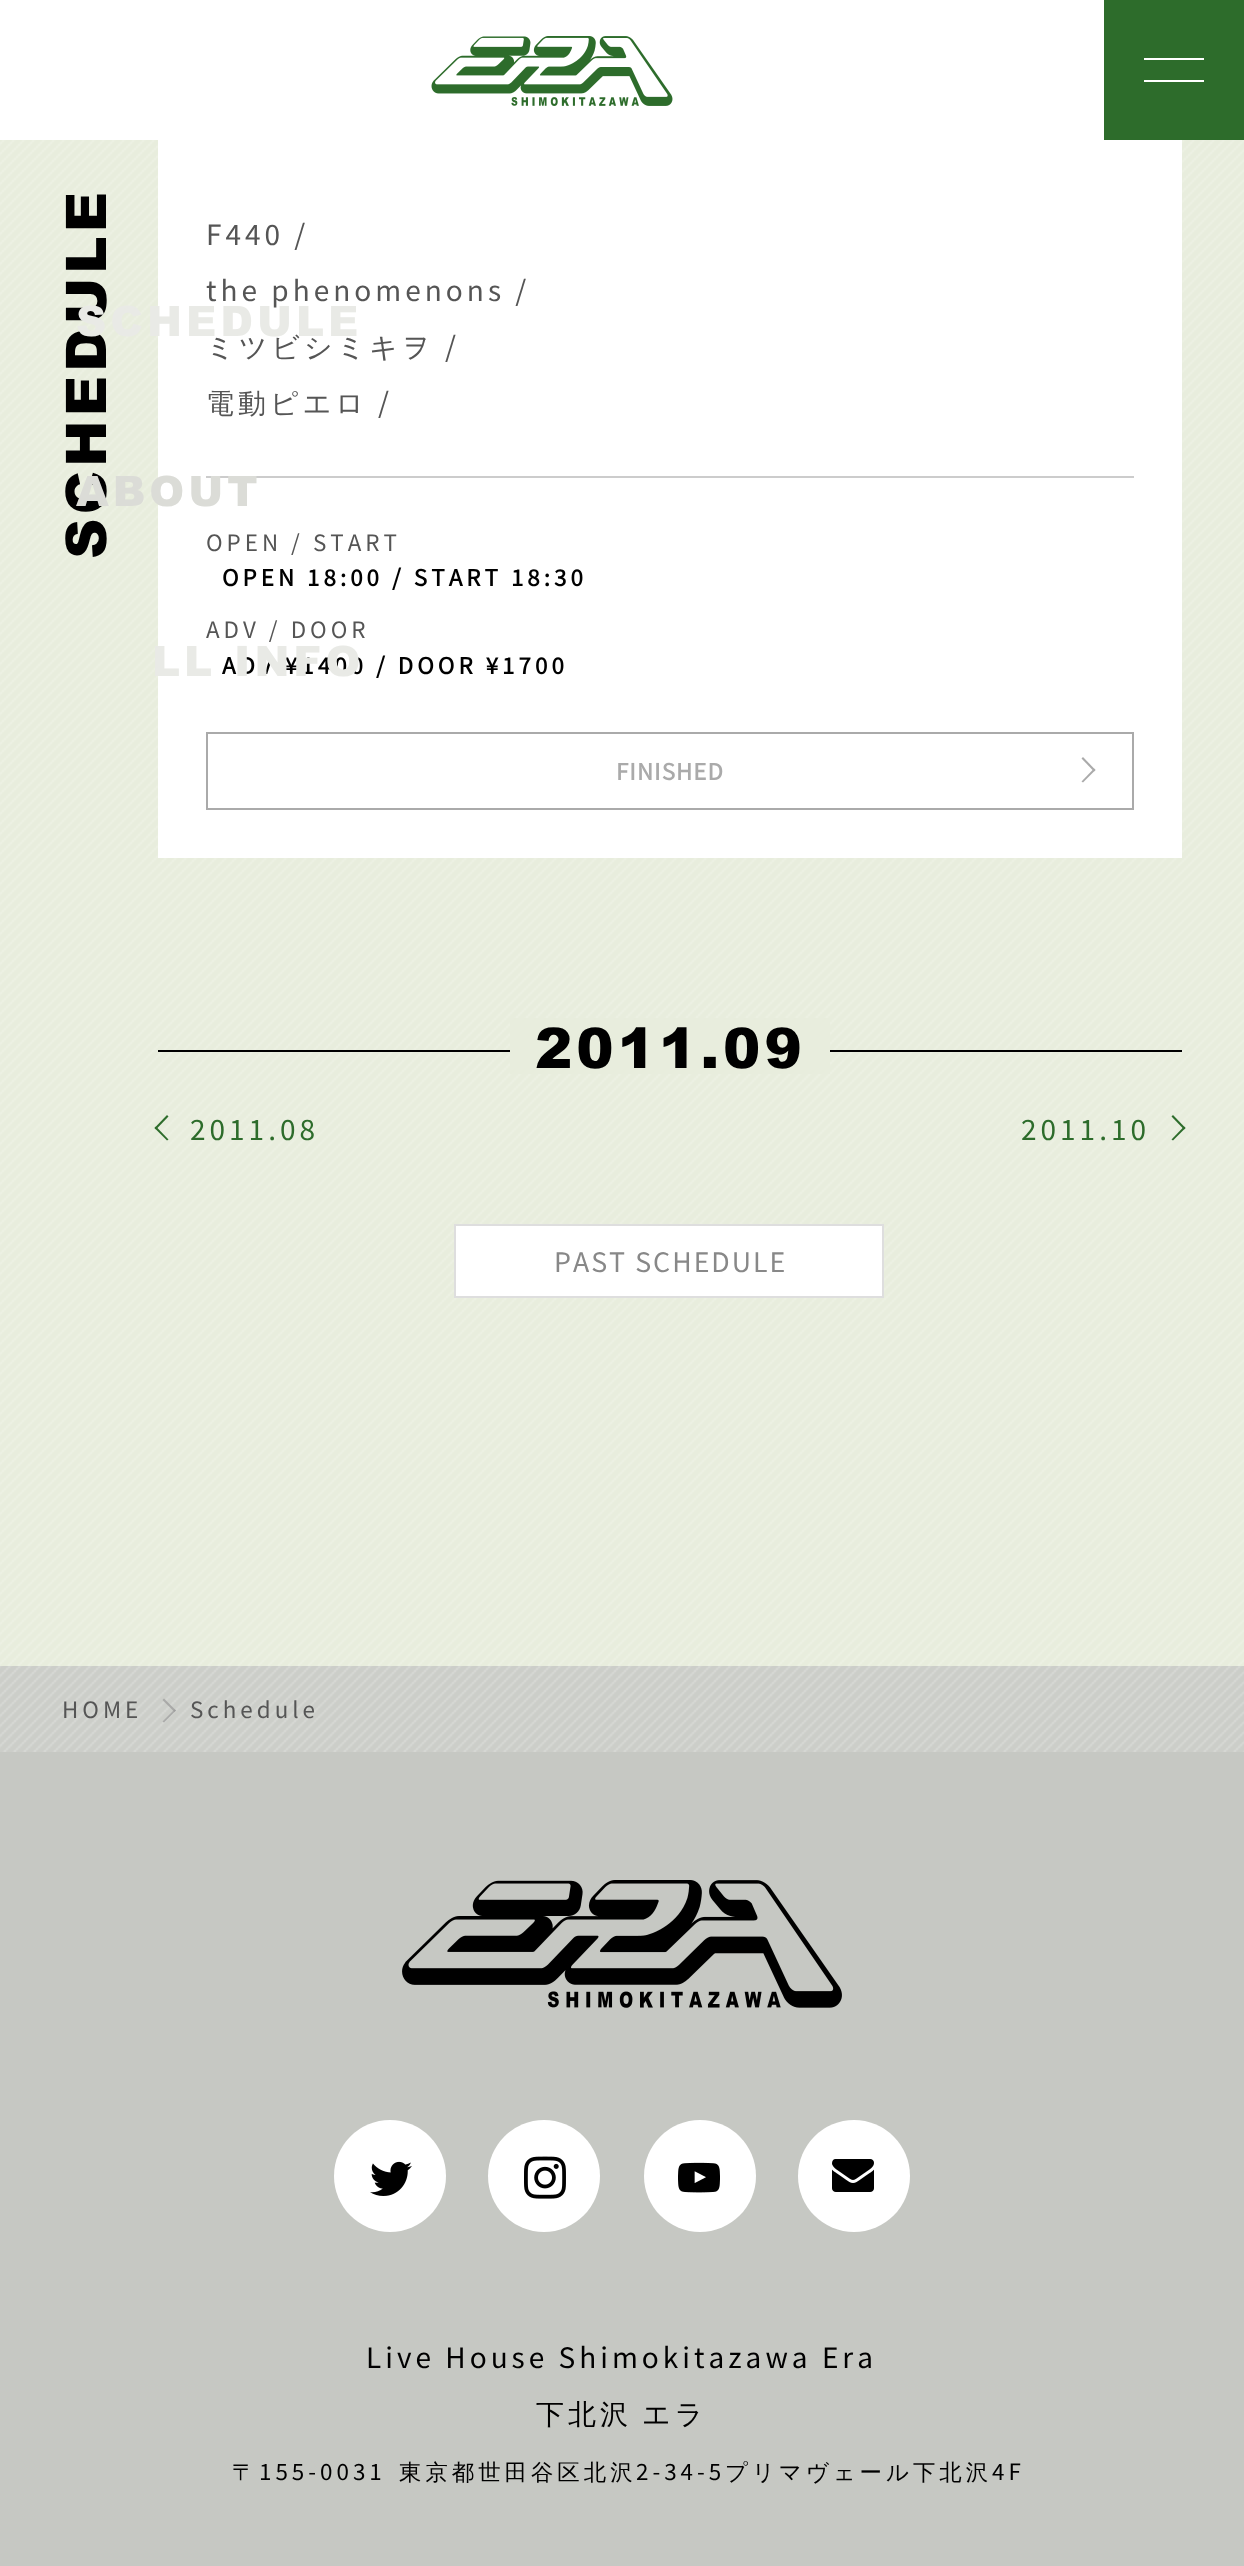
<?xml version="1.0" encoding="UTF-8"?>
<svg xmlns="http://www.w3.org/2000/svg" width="1244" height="2566">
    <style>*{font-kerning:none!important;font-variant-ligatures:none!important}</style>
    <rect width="100%" height="100%" fill="#E8EDDD"/>
    <image x="0" y="140" width="1244" height="1526" href="img_01.png"/>
    <rect x="1104" y="0" width="140" height="140" fill="#2D6C2B"/>
    <rect x="1144" y="58" width="60" height="2" fill="#FFFFFF"/>
    <rect x="1144" y="80" width="60" height="2" fill="#FFFFFF"/>
    <text x="106" y="559" transform="rotate(-90 106 559)" font-family="Arial" font-size="56" font-weight="900" letter-spacing="4" fill="#000000">SCHEDULE</text>
    <rect x="158" y="140" width="1024" height="718" fill="#FFFFFF"/>
    <text x="206" y="245" font-family="Noto Sans JP" font-size="28" letter-spacing="4" fill="#555555">F440 /</text>
    <text x="206" y="301" font-family="Noto Sans JP" font-size="28" letter-spacing="4" fill="#555555">the phenomenons /</text>
    <text x="206" y="357" font-family="WenQuanYi Zen Hei" font-size="28" font-weight="500" letter-spacing="4" fill="#555555">ミツビシミキヲ</text>
    <text x="445" y="357" font-family="Noto Sans JP" font-size="28" letter-spacing="4" fill="#555555">/</text>
    <text x="206" y="413" font-family="WenQuanYi Zen Hei" font-size="28" font-weight="500" letter-spacing="4" fill="#555555">電動ピエロ</text>
    <text x="378" y="413" font-family="Noto Sans JP" font-size="28" letter-spacing="4" fill="#555555">/</text>
    <rect x="206" y="476" width="928" height="2" fill="#CCCCCC"/>
    <text x="206" y="551" font-family="Noto Sans JP" font-size="22.4" letter-spacing="4" fill="#555555">OPEN / START</text>
    <text x="222" y="586" font-family="Noto Sans JP" font-size="22.4" font-weight="700" letter-spacing="4" fill="#000000">OPEN 18:00 / START 18:30</text>
    <text x="206" y="638" font-family="Noto Sans JP" font-size="22.4" letter-spacing="4" fill="#555555">ADV / DOOR</text>
    <text x="222" y="674" font-family="Noto Sans JP" font-size="22.4" font-weight="700" letter-spacing="4" fill="#000000">ADV ¥1400 / DOOR ¥1700</text>
    <rect x="207" y="733" width="926" height="76" fill="none" stroke="#AAAAAA" stroke-width="2"/>
    <text x="616" y="780" font-family="Noto Sans JP" font-size="22.4" font-weight="700" letter-spacing="1" fill="#AAAAAA">FINISHED</text>
    <path d="M 1083 757 L 1095.5 770 L 1094 771.5 L 1081.5 758.5 Z" fill="#AAAAAA"/>
    <path d="M 1094 768.5 L 1095.5 770 L 1083 782.5 L 1081.5 781.5 Z" fill="#AAAAAA"/>
    <rect x="158" y="1050" width="1024" height="2" fill="#000000"/>
    <rect x="510" y="1018" width="320" height="56" fill="#E8EDDD"/>
    <text x="535" y="1068" font-family="Arial" font-size="56" font-weight="900" letter-spacing="4" fill="#000000">2011.09</text>
    <path d="M 168.5 1139.5 L 167 1140.5 L 154.5 1128 L 156 1126.5 Z" fill="#2D6C2B"/>
    <path d="M 168.5 1116.5 L 156 1129.5 L 154.5 1128 L 167 1115 Z" fill="#2D6C2B"/>
    <text x="190" y="1140" font-family="Noto Sans JP" font-size="28" letter-spacing="4" fill="#2D6C2B">2011.08</text>
    <text x="1021" y="1140" font-family="Noto Sans JP" font-size="28" letter-spacing="4" fill="#2D6C2B">2011.10</text>
    <path d="M 1171.5 1116.5 L 1173 1115 L 1185.5 1128 L 1184 1129.5 Z" fill="#2D6C2B"/>
    <path d="M 1171.5 1139.5 L 1184 1126.5 L 1185.5 1128 L 1173 1140.5 Z" fill="#2D6C2B"/>
    <rect x="455" y="1225" width="428" height="72" fill="#FFFFFF" stroke="#DEDEDE" stroke-width="2"/>
    <text x="554" y="1272" font-family="Noto Sans JP" font-size="26.75" letter-spacing="2" fill="#888888">PAST SCHEDULE</text>
    <rect x="0" y="0" width="1104" height="140" fill="#FFFFFF"/>
    <image x="431" y="36" width="242" height="70" href="img_02.png"/>
    <text x="76" y="336" font-family="Arial" font-size="42" font-weight="900" letter-spacing="4" fill="#E9EAE6">SCHEDULE</text>
    <text x="76" y="506" font-family="Arial" font-size="42" font-weight="900" letter-spacing="4" fill="#DBDCD7">ABOUT</text>
    <text x="152" y="676" font-family="Arial" font-size="42" font-weight="900" letter-spacing="4" fill="#E9EAE6">LL INFO</text>
    <rect x="0" y="1752" width="1244" height="814" fill="#C6C8C3"/>
    <rect x="0" y="1666" width="1244" height="86" fill="#CCCEC9"/>
    <image x="0" y="1666" width="1244" height="86" href="img_03.png"/>
    <text x="62" y="1718" font-family="Noto Sans JP" font-size="22.4" letter-spacing="4" fill="#555555">HOME</text>
    <path d="M 162.5 1700 L 164 1698.5 L 176 1710.5 L 174.5 1712 Z" fill="#999999" fill-opacity="0.7"/>
    <path d="M 162.5 1721.5 L 174.5 1709.5 L 176 1710.5 L 164 1722.5 Z" fill="#999999" fill-opacity="0.7"/>
    <text x="190" y="1718" font-family="Noto Sans JP" font-size="22.4" letter-spacing="4" fill="#555555">Schedule</text>
    <image x="402" y="1880" width="440" height="128" href="img_04.png"/>
    <circle cx="390" cy="2176" r="56" fill="#FFFFFF"/>
    <image x="370" y="2161" width="42" height="35" href="img_05.png"/>
    <circle cx="544" cy="2176" r="56" fill="#FFFFFF"/>
    <image x="524" y="2156" width="42" height="43" href="img_06.png"/>
    <circle cx="700" cy="2176" r="56" fill="#FFFFFF"/>
    <image x="678" y="2162" width="42" height="31" href="img_07.png"/>
    <circle cx="854" cy="2176" r="56" fill="#FFFFFF"/>
    <image x="832" y="2159" width="42" height="33" href="img_08.png"/>
    <text x="366" y="2368" font-family="Noto Sans JP" font-size="28" letter-spacing="4" fill="#000000">Live House Shimokitazawa Era</text>
    <text x="536" y="2424" font-family="WenQuanYi Zen Hei" font-size="28" font-weight="500" letter-spacing="4" fill="#000000">下北沢</text>
    <text x="642" y="2424" font-family="WenQuanYi Zen Hei" font-size="28" font-weight="500" letter-spacing="4" fill="#000000">エラ</text>
    <text x="232" y="2480" font-family="WenQuanYi Zen Hei" font-size="22.4" font-weight="500" letter-spacing="4" fill="#000000">〒</text>
    <text x="259" y="2480" font-family="Noto Sans JP" font-size="22.4" letter-spacing="4" fill="#000000">155-0031</text>
    <text x="399" y="2480" font-family="WenQuanYi Zen Hei" font-size="22.4" font-weight="500" letter-spacing="4" fill="#000000">東京都世田谷区北沢</text>
    <text x="636" y="2480" font-family="Noto Sans JP" font-size="22.4" letter-spacing="4" fill="#000000">2-34-5</text>
    <text x="725" y="2480" font-family="WenQuanYi Zen Hei" font-size="22.4" font-weight="500" letter-spacing="4" fill="#000000">プリマヴェール下北沢</text>
    <text x="992" y="2480" font-family="Noto Sans JP" font-size="22.4" letter-spacing="4" fill="#000000">4F</text>
</svg>
